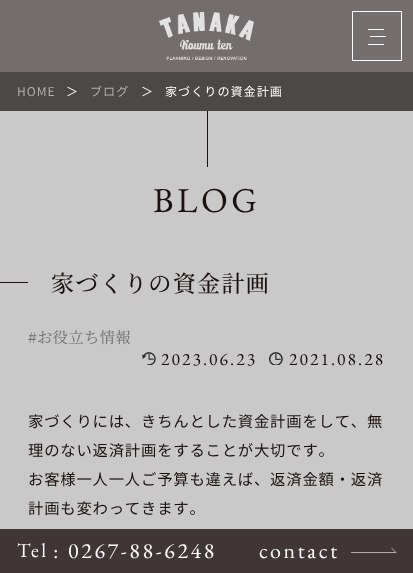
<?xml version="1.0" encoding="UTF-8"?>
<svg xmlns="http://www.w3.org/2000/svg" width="413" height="573">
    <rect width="100%" height="100%" fill="#C9C9C9"/>
    <rect x="0" y="0" width="413" height="72" fill="#736D6D"/>
    <image x="158" y="12" width="97" height="48" href="img_01.png"/>
    <rect x="352.5" y="11.5" width="49" height="49" fill="none" stroke="#FFFFFF"/>
    <rect x="368" y="29" width="16" height="1" fill="#FFFFFF"/>
    <rect x="370" y="36" width="16" height="1" fill="#FFFFFF"/>
    <rect x="368" y="44" width="16" height="1" fill="#FFFFFF"/>
    <rect x="0" y="72" width="413" height="39" fill="#4C4847"/>
    <text x="17" y="96" font-family="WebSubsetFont" font-size="12.1" letter-spacing="1" fill="#AFADAD">HOME</text>
    <text x="66" y="96" font-family="WebSubsetFont" font-size="12.1" letter-spacing="1" fill="#FFFFFF">＞</text>
    <text x="90" y="96" font-family="WebSubsetFont" font-size="12.1" letter-spacing="1" fill="#AFADAD">ブログ</text>
    <text x="141" y="96" font-family="WebSubsetFont" font-size="12.1" letter-spacing="1" fill="#FFFFFF">＞</text>
    <text x="165" y="96" font-family="WebSubsetFont" font-size="12.1" letter-spacing="1" fill="#FFFFFF">家づくりの資金計画</text>
    <rect x="207" y="111" width="1" height="56" fill="#1C1110"/>
    <text x="153" y="212" font-family="EB Garamond" font-size="35" letter-spacing="3.5" fill="#1C1110">BLOG</text>
    <rect x="0" y="282" width="28" height="1" fill="#1C1110"/>
    <text x="51" y="292" font-family="WebSubsetFont" font-size="23.1" font-weight="500" letter-spacing="1.25" fill="#1C1110">家づくりの資金計画</text>
    <text x="28" y="343" font-family="'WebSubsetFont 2'" font-size="15.4" letter-spacing="0.25" fill="#6E6E6E">#お役立ち情報</text>
    <image x="142" y="352" width="14" height="13" href="img_02.png"/>
    <text x="161" y="365" font-family="EB Garamond" font-size="17.5" letter-spacing="2.1" fill="#1C1110">2023.06.23</text>
    <image x="269" y="352" width="14" height="13" href="img_03.png"/>
    <text x="289" y="365" font-family="EB Garamond" font-size="17.5" letter-spacing="2.1" fill="#1C1110">2021.08.28</text>
    <text font-family="WebSubsetFont" font-size="15.4" letter-spacing="0.75" fill="#1C1110">
        <tspan x="28" y="427">家づくりには、きちんとした資金計画をして、無</tspan>
        <tspan x="28" y="456">理のない返済計画をすることが大切です。</tspan>
        <tspan x="28" y="485">お客様一人一人ご予算も違えば、返済金額・返済</tspan>
        <tspan x="28" y="514">計画も変わってきます。</tspan>
    </text>
    <rect x="0" y="529" width="413" height="44" fill="#3F3635"/>
    <text x="17" y="557" font-family="EB Garamond" font-size="20" letter-spacing="2.6" fill="#FFFFFF">Tel</text>
    <text x="53" y="558" font-family="EB Garamond" font-size="22" letter-spacing="2.6" fill="#FFFFFF">: 0267-88-6248</text>
    <text x="259" y="558" font-family="EB Garamond" font-size="22" letter-spacing="2.6" fill="#FFFFFF">contact</text>
    <path d="M 351 552.5 H 396 L 391.5 548" fill="none" stroke="#FFFFFF" stroke-width="0.6"/>
</svg>
